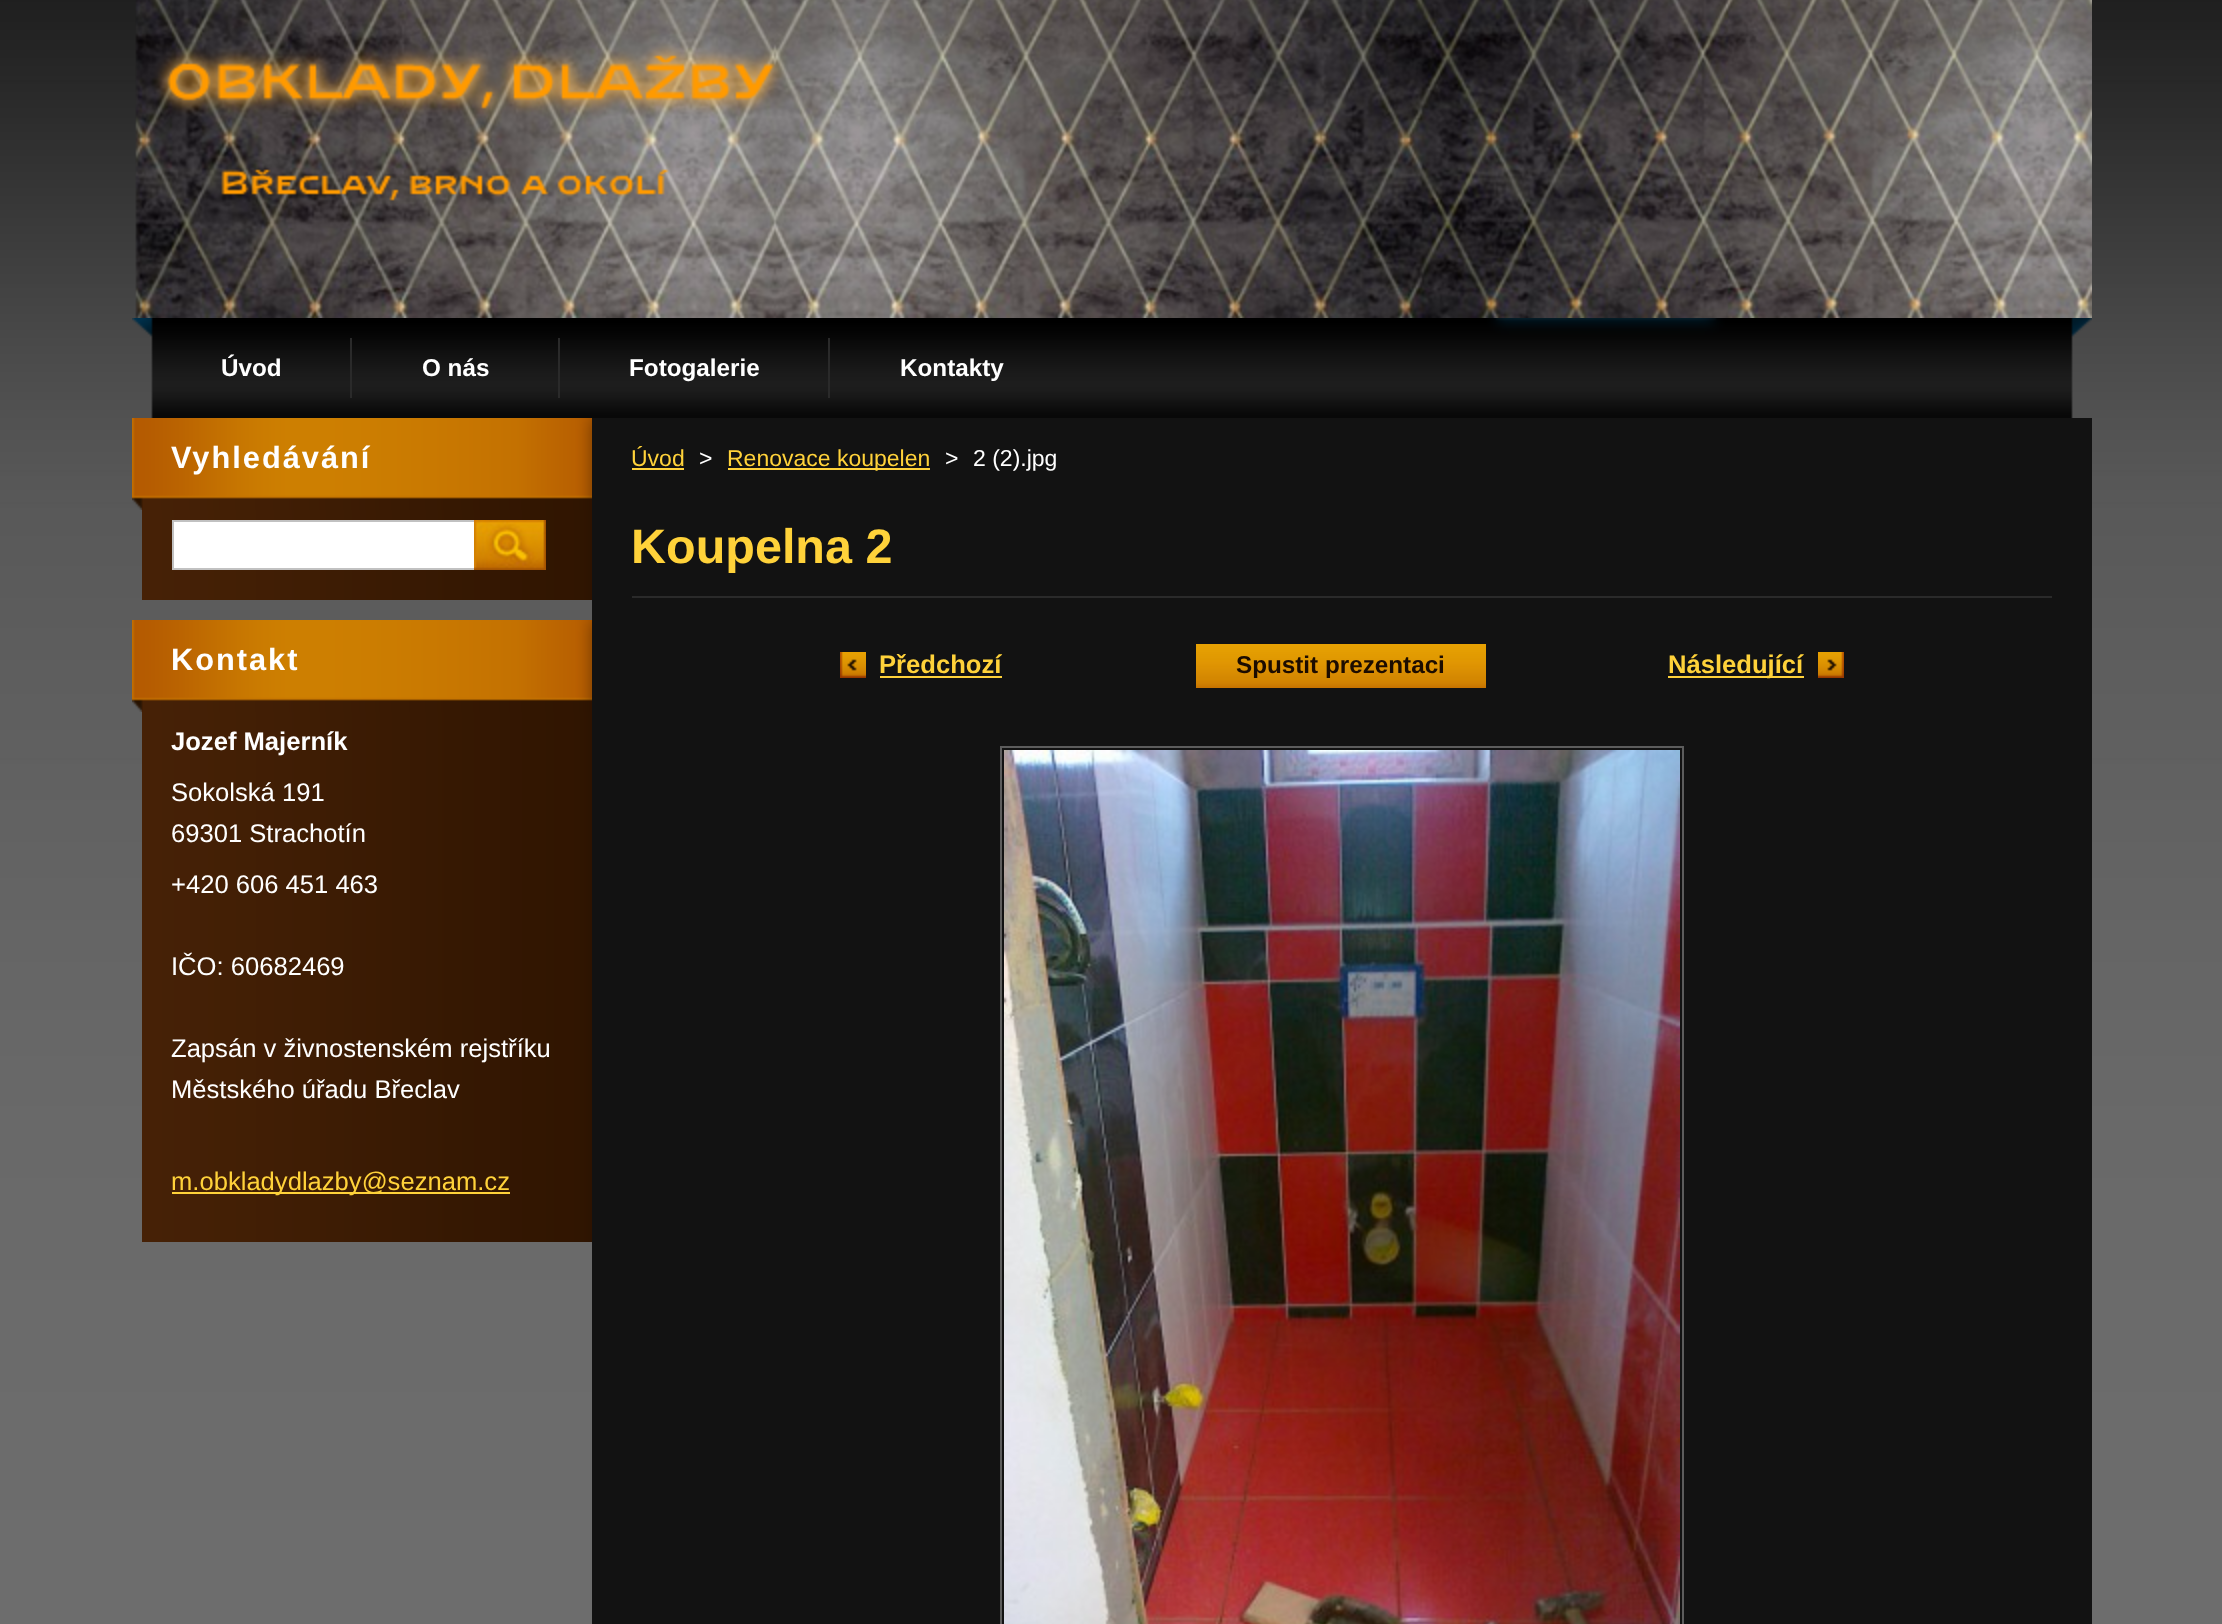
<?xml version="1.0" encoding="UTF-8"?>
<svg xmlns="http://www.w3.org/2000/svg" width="2222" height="1624">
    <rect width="100%" height="100%" fill="#FFFFFF"/>
    <image x="0" y="0" width="2222" height="1624" href="img_01.png"/>
    <image x="135" y="0" width="1957" height="318" href="img_02.png"/>
    <image x="132" y="318" width="1960" height="100" href="img_03.png"/>
    <rect x="350" y="338" width="2" height="60" fill="#2A2A2A"/>
    <text x="221" y="376" font-family="Liberation Sans" font-size="24.25" font-weight="700" fill="#FFFFFF">Úvod</text>
    <rect x="558" y="338" width="2" height="60" fill="#2A2A2A"/>
    <text x="422" y="376" font-family="Liberation Sans" font-size="24.25" font-weight="700" fill="#FFFFFF">O nás</text>
    <rect x="828" y="338" width="2" height="60" fill="#2A2A2A"/>
    <text x="629" y="376" font-family="Liberation Sans" font-size="24.25" font-weight="700" fill="#FFFFFF">Fotogalerie</text>
    <text x="900" y="376" font-family="Liberation Sans" font-size="24.25" font-weight="700" fill="#FFFFFF">Kontakty</text>
    <image x="142" y="498" width="450" height="102" href="img_04.png"/>
    <image x="132" y="418" width="460" height="92" href="img_05.png"/>
    <text x="171" y="468" font-family="Liberation Sans" font-size="30.75" font-weight="700" letter-spacing="2" fill="#FFFFFF">Vyhledávání</text>
    <rect x="173" y="521" width="302" height="48" fill="#FFFFFF" stroke="#C1C1C1" stroke-width="2"/>
    <image x="474" y="520" width="72" height="50" href="img_06.png"/>
    <image x="142" y="700" width="450" height="542" href="img_07.png"/>
    <image x="132" y="620" width="460" height="92" href="img_08.png"/>
    <text x="171" y="670" font-family="Liberation Sans" font-size="30.75" font-weight="700" letter-spacing="2" fill="#FFFFFF">Kontakt</text>
    <text x="171" y="750" font-family="Liberation Sans" font-size="25.6" font-weight="700" fill="#FFFFFF">Jozef Majerník</text>
    <text font-family="Liberation Sans" font-size="25.6" fill="#FFFFFF">
        <tspan x="171" y="801">Sokolská 191</tspan>
        <tspan x="171" y="842">69301 Strachotín</tspan>
        <tspan x="171" y="893">+420 606 451 463</tspan>
    </text>
    <text x="171" y="975" font-family="Liberation Sans" font-size="25.6" fill="#FFFFFF">IČO: 60682469</text>
    <text font-family="Liberation Sans" font-size="25.6" fill="#FFFFFF">
        <tspan x="171" y="1057">Zapsán v živnostenském rejstříku</tspan>
        <tspan x="171" y="1098">Městského úřadu Břeclav</tspan>
    </text>
    <rect x="172" y="1192" width="338" height="2" fill="#FFD23A"/>
    <text x="171" y="1190" font-family="Liberation Sans" font-size="25.6" fill="#FFD23A">m.obkladydlazby@seznam.cz</text>
    <rect x="592" y="418" width="1500" height="1206" fill="#121212"/>
    <text x="631" y="466" font-family="Liberation Sans" font-size="23" fill="#FFD23A">Úvod</text>
    <rect x="632" y="468" width="52" height="2" fill="#FFD23A"/>
    <text x="699" y="466" font-family="Liberation Sans" font-size="23" fill="#FFFFFF">&gt;</text>
    <rect x="728" y="468" width="202" height="2" fill="#FFD23A"/>
    <text x="727" y="466" font-family="Liberation Sans" font-size="23" fill="#FFD23A">Renovace koupelen</text>
    <text x="945" y="466" font-family="Liberation Sans" font-size="23" fill="#FFFFFF">&gt;</text>
    <text x="973" y="466" font-family="Liberation Sans" font-size="23" fill="#FFFFFF">2 (2).jpg</text>
    <rect x="632" y="596" width="1420" height="2" fill="#2A2A2A"/>
    <text x="631" y="563" font-family="Liberation Sans" font-size="48.5" font-weight="700" fill="#FFD23A">Koupelna 2</text>
    <image x="840" y="652" width="26" height="26" href="img_09.png"/>
    <text x="879" y="673" font-family="Liberation Sans" font-size="25.6" font-weight="700" fill="#FFD23A">Předchozí</text>
    <rect x="880" y="676" width="122" height="2" fill="#FFD23A"/>
    <image x="1196" y="644" width="290" height="44" href="img_10.png"/>
    <text x="1236" y="673" font-family="Liberation Sans" font-size="24.25" font-weight="700" fill="#1C0C00">Spustit prezentaci</text>
    <image x="1818" y="652" width="26" height="26" href="img_11.png"/>
    <rect x="1668" y="676" width="136" height="2" fill="#FFD23A"/>
    <text x="1668" y="673" font-family="Liberation Sans" font-size="25.6" font-weight="700" fill="#FFD23A">Následující</text>
    <rect x="1001" y="747" width="682" height="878" fill="none" stroke="#5C5C5C" stroke-width="2"/>
    <image x="1004" y="750" width="676" height="874" href="img_12.png"/>
</svg>
